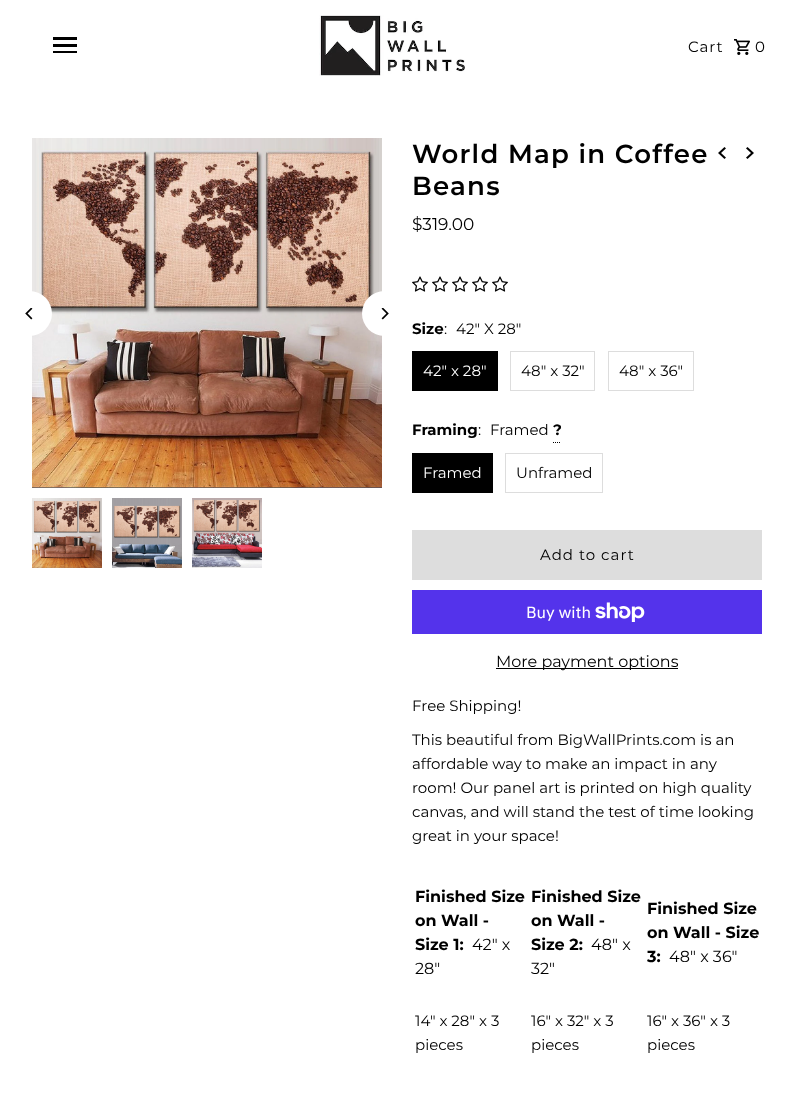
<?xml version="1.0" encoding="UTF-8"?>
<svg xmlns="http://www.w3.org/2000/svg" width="794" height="1101">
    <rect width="100%" height="100%" fill="#FFFFFF"/>
    <rect x="53" y="51" width="24" height="2" fill="#000000"/>
    <rect x="53" y="44" width="24" height="3" fill="#000000"/>
    <rect x="53" y="37" width="24" height="3" fill="#000000"/>
    <image x="319" y="15" width="146" height="61" href="img_01.png"/>
    <text x="688" y="52" font-family="Montserrat" font-size="15" letter-spacing="1" fill="#000000">Cart</text>
    <image x="734" y="39" width="16" height="16" href="img_02.png"/>
    <text x="755" y="52" font-family="Montserrat" font-size="15" letter-spacing="1" fill="#000000">0</text>
    <image x="32" y="138" width="350" height="350" href="img_04.png"/>
    <circle cx="29.5" cy="313.5" r="22.5" fill="#FFFFFF"/>
    <image x="25" y="308" width="8" height="12" href="img_03.png"/>
    <circle cx="384.5" cy="313.5" r="22.5" fill="#FFFFFF"/>
    <image x="381" y="308" width="8" height="12" href="img_05.png"/>
    <image x="32" y="498" width="70" height="70" href="img_06.png"/>
    <image x="112" y="498" width="70" height="70" href="img_07.png"/>
    <image x="192" y="498" width="70" height="70" href="img_08.png"/>
    <text font-family="Montserrat" font-size="26" font-weight="600" letter-spacing="1.25" fill="#000000">
        <tspan x="412" y="163">World Map in Coffee</tspan>
        <tspan x="412" y="195">Beans</tspan>
    </text>
    <image x="718" y="147" width="8" height="12" href="img_09.png"/>
    <image x="746" y="147" width="8" height="12" href="img_10.png"/>
    <text x="412" y="230" font-family="Montserrat" font-size="17" fill="#000000">$319.00</text>
    <image x="412" y="276" width="16" height="16" href="img_11.png"/>
    <image x="432" y="276" width="16" height="16" href="img_11.png"/>
    <image x="452" y="276" width="16" height="16" href="img_11.png"/>
    <image x="472" y="276" width="16" height="16" href="img_11.png"/>
    <image x="492" y="276" width="16" height="16" href="img_11.png"/>
    <text x="412" y="334" font-family="Montserrat" font-size="15" font-weight="700" fill="#000000">Size</text>
    <text x="444" y="334" font-family="Montserrat" font-size="15" fill="#000000">:</text>
    <text x="456" y="334" font-family="Montserrat" font-size="15" fill="#000000">42" X 28"</text>
    <rect x="412" y="351" width="86" height="40" fill="#000000"/>
    <text x="423" y="376" font-family="Montserrat" font-size="15" fill="#FFFFFF">42" x 28"</text>
    <rect x="510.5" y="351.5" width="84" height="39" fill="none" stroke="#DDDDDD"/>
    <text x="521" y="376" font-family="Montserrat" font-size="15" fill="#000000">48" x 32"</text>
    <rect x="608.5" y="351.5" width="85" height="39" fill="none" stroke="#DDDDDD"/>
    <text x="619" y="376" font-family="Montserrat" font-size="15" fill="#000000">48" x 36"</text>
    <text x="412" y="435" font-family="Montserrat" font-size="15" font-weight="700" fill="#000000">Framing</text>
    <text x="478" y="435" font-family="Montserrat" font-size="15" fill="#000000">:</text>
    <text x="490" y="435" font-family="Montserrat" font-size="15" fill="#000000">Framed</text>
    <path d="M 553 442.5 H 561" fill="none" stroke="#000000" stroke-dasharray="1 1"/>
    <text x="553" y="435" font-family="Montserrat" font-size="15" font-weight="700" fill="#000000">?</text>
    <rect x="412" y="453" width="81" height="40" fill="#000000"/>
    <text x="423" y="478" font-family="Montserrat" font-size="15" fill="#FFFFFF">Framed</text>
    <rect x="505.5" y="453.5" width="97" height="39" fill="none" stroke="#DDDDDD"/>
    <text x="516" y="478" font-family="Montserrat" font-size="15" fill="#000000">Unframed</text>
    <rect x="412" y="530" width="350" height="50" fill="#DDDDDD"/>
    <text x="540" y="560" font-family="Montserrat" font-size="15" letter-spacing="1" fill="#000000">Add to cart</text>
    <rect x="412" y="590" width="350" height="44" fill="#5433EB"/>
    <text x="526" y="618" font-family="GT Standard" font-size="16" fill="#FFFFFF">Buy with</text>
    <image x="595" y="602" width="50" height="20" href="img_12.png"/>
    <rect x="496" y="668" width="182" height="1" fill="#000000"/>
    <text x="496" y="667" font-family="Montserrat" font-size="16" fill="#000000">More payment options</text>
    <text x="412" y="711" font-family="Montserrat" font-size="15" fill="#000000">Free Shipping!</text>
    <text font-family="Montserrat" font-size="15" fill="#000000">
        <tspan x="412" y="745">This beautiful from BigWallPrints.com is an</tspan>
        <tspan x="412" y="769">affordable way to make an impact in any</tspan>
        <tspan x="412" y="793">room! Our panel art is printed on high quality</tspan>
        <tspan x="412" y="817">canvas, and will stand the test of time looking</tspan>
        <tspan x="412" y="841">great in your space!</tspan>
    </text>
    <text font-family="Montserrat" font-size="16" font-weight="700" fill="#000000">
        <tspan x="415" y="902">Finished Size</tspan>
        <tspan x="415" y="926">on Wall -</tspan>
        <tspan x="415" y="950">Size 1:</tspan>
    </text>
    <text x="472" y="950" font-family="Montserrat" font-size="16" fill="#000000">42" x</text>
    <text x="415" y="974" font-family="Montserrat" font-size="16" fill="#000000">28"</text>
    <text font-family="Montserrat" font-size="16" font-weight="700" fill="#000000">
        <tspan x="531" y="902">Finished Size</tspan>
        <tspan x="531" y="926">on Wall -</tspan>
        <tspan x="531" y="950">Size 2:</tspan>
    </text>
    <text x="591" y="950" font-family="Montserrat" font-size="16" fill="#000000">48" x</text>
    <text x="531" y="974" font-family="Montserrat" font-size="16" fill="#000000">32"</text>
    <text font-family="Montserrat" font-size="16" font-weight="700" fill="#000000">
        <tspan x="647" y="914">Finished Size</tspan>
        <tspan x="647" y="938">on Wall - Size</tspan>
        <tspan x="647" y="962">3:</tspan>
    </text>
    <text x="669" y="962" font-family="Montserrat" font-size="16" fill="#000000">48" x 36"</text>
    <text font-family="Montserrat" font-size="15" fill="#000000">
        <tspan x="415" y="1026">14" x 28" x 3</tspan>
        <tspan x="415" y="1050">pieces</tspan>
    </text>
    <text font-family="Montserrat" font-size="15" fill="#000000">
        <tspan x="531" y="1026">16" x 32" x 3</tspan>
        <tspan x="531" y="1050">pieces</tspan>
    </text>
    <text font-family="Montserrat" font-size="15" fill="#000000">
        <tspan x="647" y="1026">16" x 36" x 3</tspan>
        <tspan x="647" y="1050">pieces</tspan>
    </text>
</svg>
